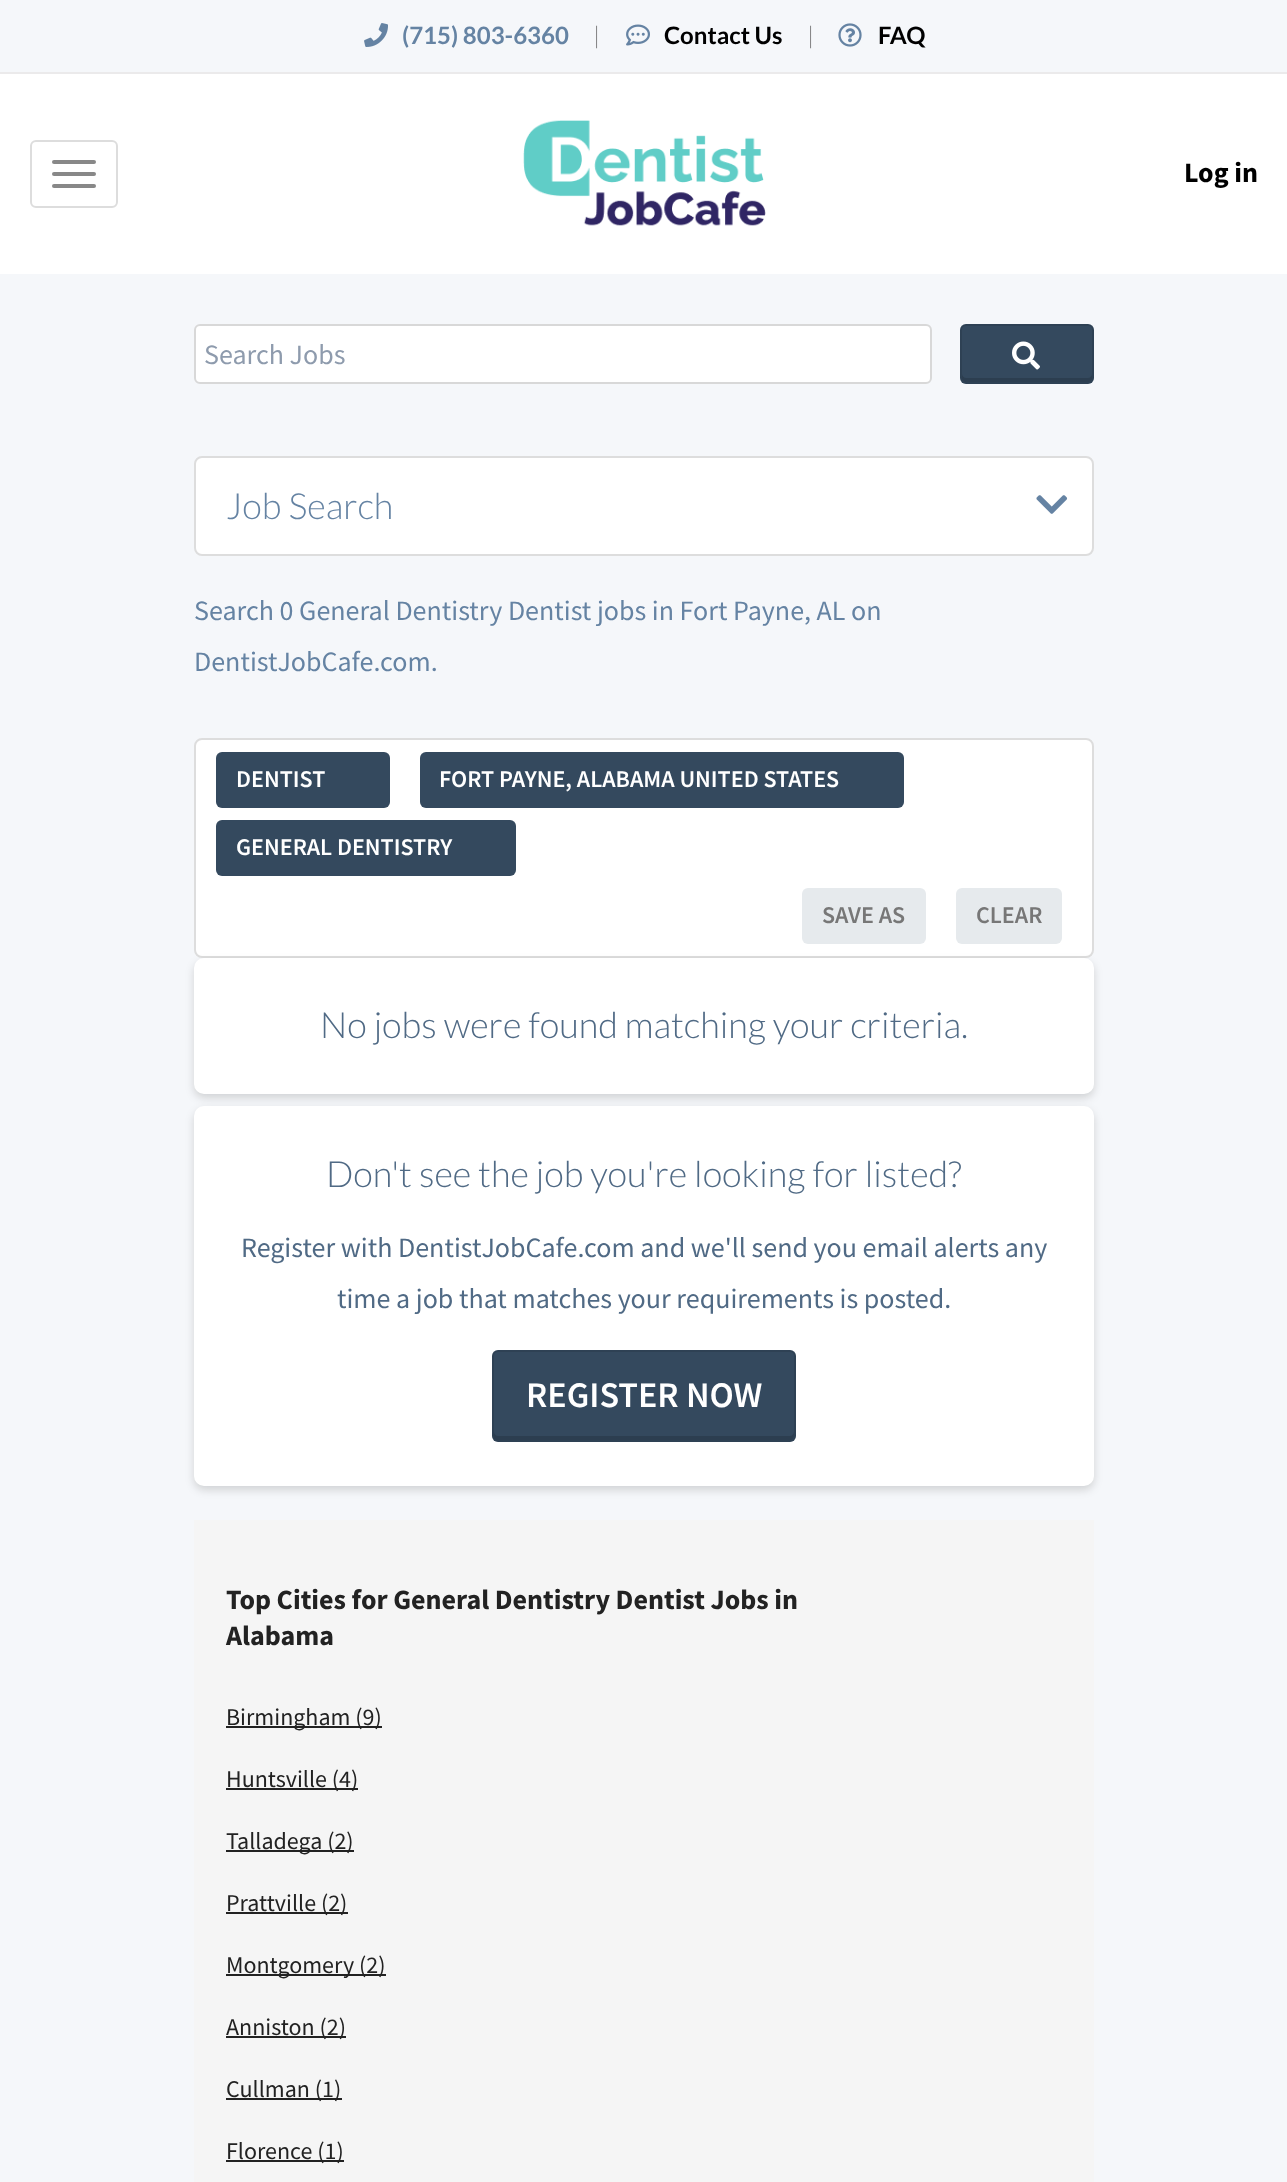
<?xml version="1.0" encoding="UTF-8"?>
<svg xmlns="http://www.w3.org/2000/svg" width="1287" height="2182">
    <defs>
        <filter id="blur1" x="-50%" y="-200%" width="200%" height="500%"><feGaussianBlur stdDeviation="4"/></filter>
    </defs>
    <rect width="100%" height="100%" fill="#FFFFFF"/>
    <rect x="0" y="0" width="1287" height="72" fill="#F5F7FA"/>
    <rect x="0" y="72" width="1287" height="2" fill="#EBEAEB"/>
    <image x="364" y="23" width="24" height="24" href="img_01.png"/>
    <text x="402" y="44" font-family="Lato" font-size="24" font-weight="700" fill="#6583A3">(715) 803-6360</text>
    <text x="593" y="44" font-family="Lato" font-size="24" font-weight="300" fill="#777777">|</text>
    <image x="626" y="24" width="24" height="22" href="img_02.png"/>
    <text x="664" y="44" font-family="Lato" font-size="24" font-weight="700" fill="#000000">Contact Us</text>
    <text x="807" y="44" font-family="Lato" font-size="24" font-weight="300" fill="#777777">|</text>
    <image x="838" y="23" width="24" height="24" href="img_03.png"/>
    <text x="878" y="44" font-family="Lato" font-size="24" font-weight="700" fill="#000000">FAQ</text>
    <rect x="31" y="141" width="86" height="66" rx="5" fill="none" stroke="#DDDDDD" stroke-width="2"/>
    <rect x="52" y="160" width="44" height="4" rx="2" fill="#888888"/>
    <rect x="52" y="172" width="44" height="4" rx="2" fill="#888888"/>
    <rect x="52" y="184" width="44" height="4" rx="2" fill="#888888"/>
    <image x="523" y="120" width="243" height="106" href="img_04.png"/>
    <text x="1184" y="182" font-family="Source Sans Pro" font-size="28" font-weight="700" fill="#000000">Log in</text>
    <rect x="0" y="274" width="1287" height="1908" fill="#F5F7FA"/>
    <rect x="195" y="325" width="736" height="58" rx="5" fill="#FFFFFF" stroke="#D8D8D8" stroke-width="2"/>
    <text x="204" y="364" font-family="Source Sans Pro" font-size="28" fill="#8E9BAD">Search Jobs</text>
    <rect x="960" y="324" width="134" height="60" rx="6" fill="#34495E"/>
    <path d="M 962 374 V 378 C 962 380 964 382 966 382 H 1088 C 1090 382 1092 380 1092 378 V 374 C 1092 376 1090 378 1088 378 H 966 C 964 378 962 376 962 374 Z" fill="#2C3E50"/>
    <rect x="961" y="325" width="132" height="58" rx="5" fill="none" stroke="#000000" stroke-opacity="0.1" stroke-width="2"/>
    <image x="1012" y="341" width="28" height="29" href="img_05.png"/>
    <rect x="195" y="457" width="898" height="98" rx="7" fill="#FFFFFF" stroke="#DDDDDD" stroke-width="2"/>
    <text x="226" y="519" font-family="Lato" font-size="36" font-weight="300" fill="#6583A3">Job Search</text>
    <image x="1036" y="495" width="32" height="19" href="img_06.png"/>
    <text font-family="Source Sans Pro" font-size="28" fill="#6583A3">
        <tspan x="194" y="620">Search 0 General Dentistry Dentist jobs in Fort Payne, AL on</tspan>
        <tspan x="194" y="671">DentistJobCafe.com.</tspan>
    </text>
    <rect x="195" y="739" width="898" height="218" rx="7" fill="#FFFFFF" stroke="#DDDDDD" stroke-width="2"/>
    <rect x="216" y="752" width="174" height="56" rx="6" fill="#34495E"/>
    <text x="236" y="787" font-family="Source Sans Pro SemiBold" font-size="24" font-weight="600" fill="#FFFFFF">DENTIST</text>
    <rect x="420" y="752" width="484" height="56" rx="6" fill="#34495E"/>
    <text x="439" y="787" font-family="Source Sans Pro SemiBold" font-size="24" font-weight="600" fill="#FFFFFF">FORT PAYNE, ALABAMA UNITED STATES</text>
    <rect x="216" y="820" width="300" height="56" rx="6" fill="#34495E"/>
    <text x="236" y="855" font-family="Source Sans Pro SemiBold" font-size="24" font-weight="600" fill="#FFFFFF">GENERAL DENTISTRY</text>
    <rect x="802" y="888" width="124" height="56" rx="6" fill="#E6EAED"/>
    <text x="822" y="923" font-family="Source Sans Pro SemiBold" font-size="24" font-weight="600" fill="#777777">SAVE AS</text>
    <rect x="956" y="888" width="106" height="56" rx="6" fill="#E6EAED"/>
    <text x="976" y="923" font-family="Source Sans Pro SemiBold" font-size="24" font-weight="600" fill="#777777">CLEAR</text>
    <rect x="194" y="962" width="900" height="136" rx="10" fill="#000000" fill-opacity="0.15" filter="url(#blur1)"/>
    <rect x="194" y="958" width="900" height="136" rx="10" fill="#FFFFFF"/>
    <text x="320" y="1038" font-family="Lato" font-size="36" font-weight="300" fill="#506A85">No jobs were found matching your criteria.</text>
    <rect x="194" y="1110" width="900" height="380" rx="10" fill="#000000" fill-opacity="0.15" filter="url(#blur1)"/>
    <rect x="194" y="1106" width="900" height="380" rx="10" fill="#FFFFFF"/>
    <text x="326" y="1187" font-family="Lato" font-size="36" font-weight="300" fill="#506A85">Don't see the job you're looking for listed?</text>
    <text x="241" y="1257" font-family="Source Sans Pro" font-size="28" fill="#506A85">Register with DentistJobCafe.com and we'll send you email alerts any</text>
    <text x="337" y="1308" font-family="Source Sans Pro" font-size="28" fill="#506A85">time a job that matches your requirements is posted.</text>
    <rect x="492" y="1350" width="304" height="92" rx="6" fill="#34495E"/>
    <path d="M 494 1432 C 494 1435 493 1439 497 1440 H 790 C 794 1440 794 1435 794 1432 C 794 1434 792 1436 790 1436 H 498 C 496 1436 494 1434 494 1432 Z" fill="#2C3E50"/>
    <rect x="493" y="1351" width="302" height="90" rx="5" fill="none" stroke="#000000" stroke-opacity="0.1" stroke-width="2"/>
    <text x="526" y="1407" font-family="Source Sans Pro SemiBold" font-size="36" font-weight="600" fill="#FFFFFF">REGISTER NOW</text>
    <rect x="194" y="1520" width="900" height="662" fill="#F5F5F5"/>
    <text font-family="Source Sans Pro" font-size="28" font-weight="700" fill="#222222">
        <tspan x="226" y="1609">Top Cities for General Dentistry Dentist Jobs in</tspan>
        <tspan x="226" y="1645">Alabama</tspan>
    </text>
    <rect x="226" y="1726" width="156" height="2" fill="#222222"/>
    <text x="226" y="1725" font-family="Source Sans Pro" font-size="24" fill="#222222">Birmingham (9)</text>
    <rect x="226" y="1788" width="132" height="2" fill="#222222"/>
    <text x="226" y="1787" font-family="Source Sans Pro" font-size="24" fill="#222222">Huntsville (4)</text>
    <rect x="226" y="1850" width="128" height="2" fill="#222222"/>
    <text x="226" y="1849" font-family="Source Sans Pro" font-size="24" fill="#222222">Talladega (2)</text>
    <rect x="226" y="1912" width="122" height="2" fill="#222222"/>
    <text x="226" y="1911" font-family="Source Sans Pro" font-size="24" fill="#222222">Prattville (2)</text>
    <rect x="226" y="1974" width="160" height="2" fill="#222222"/>
    <text x="226" y="1973" font-family="Source Sans Pro" font-size="24" fill="#222222">Montgomery (2)</text>
    <rect x="226" y="2036" width="120" height="2" fill="#222222"/>
    <text x="226" y="2035" font-family="Source Sans Pro" font-size="24" fill="#222222">Anniston (2)</text>
    <rect x="226" y="2098" width="116" height="2" fill="#222222"/>
    <text x="226" y="2097" font-family="Source Sans Pro" font-size="24" fill="#222222">Cullman (1)</text>
    <rect x="226" y="2160" width="118" height="2" fill="#222222"/>
    <text x="226" y="2159" font-family="Source Sans Pro" font-size="24" fill="#222222">Florence (1)</text>
</svg>
